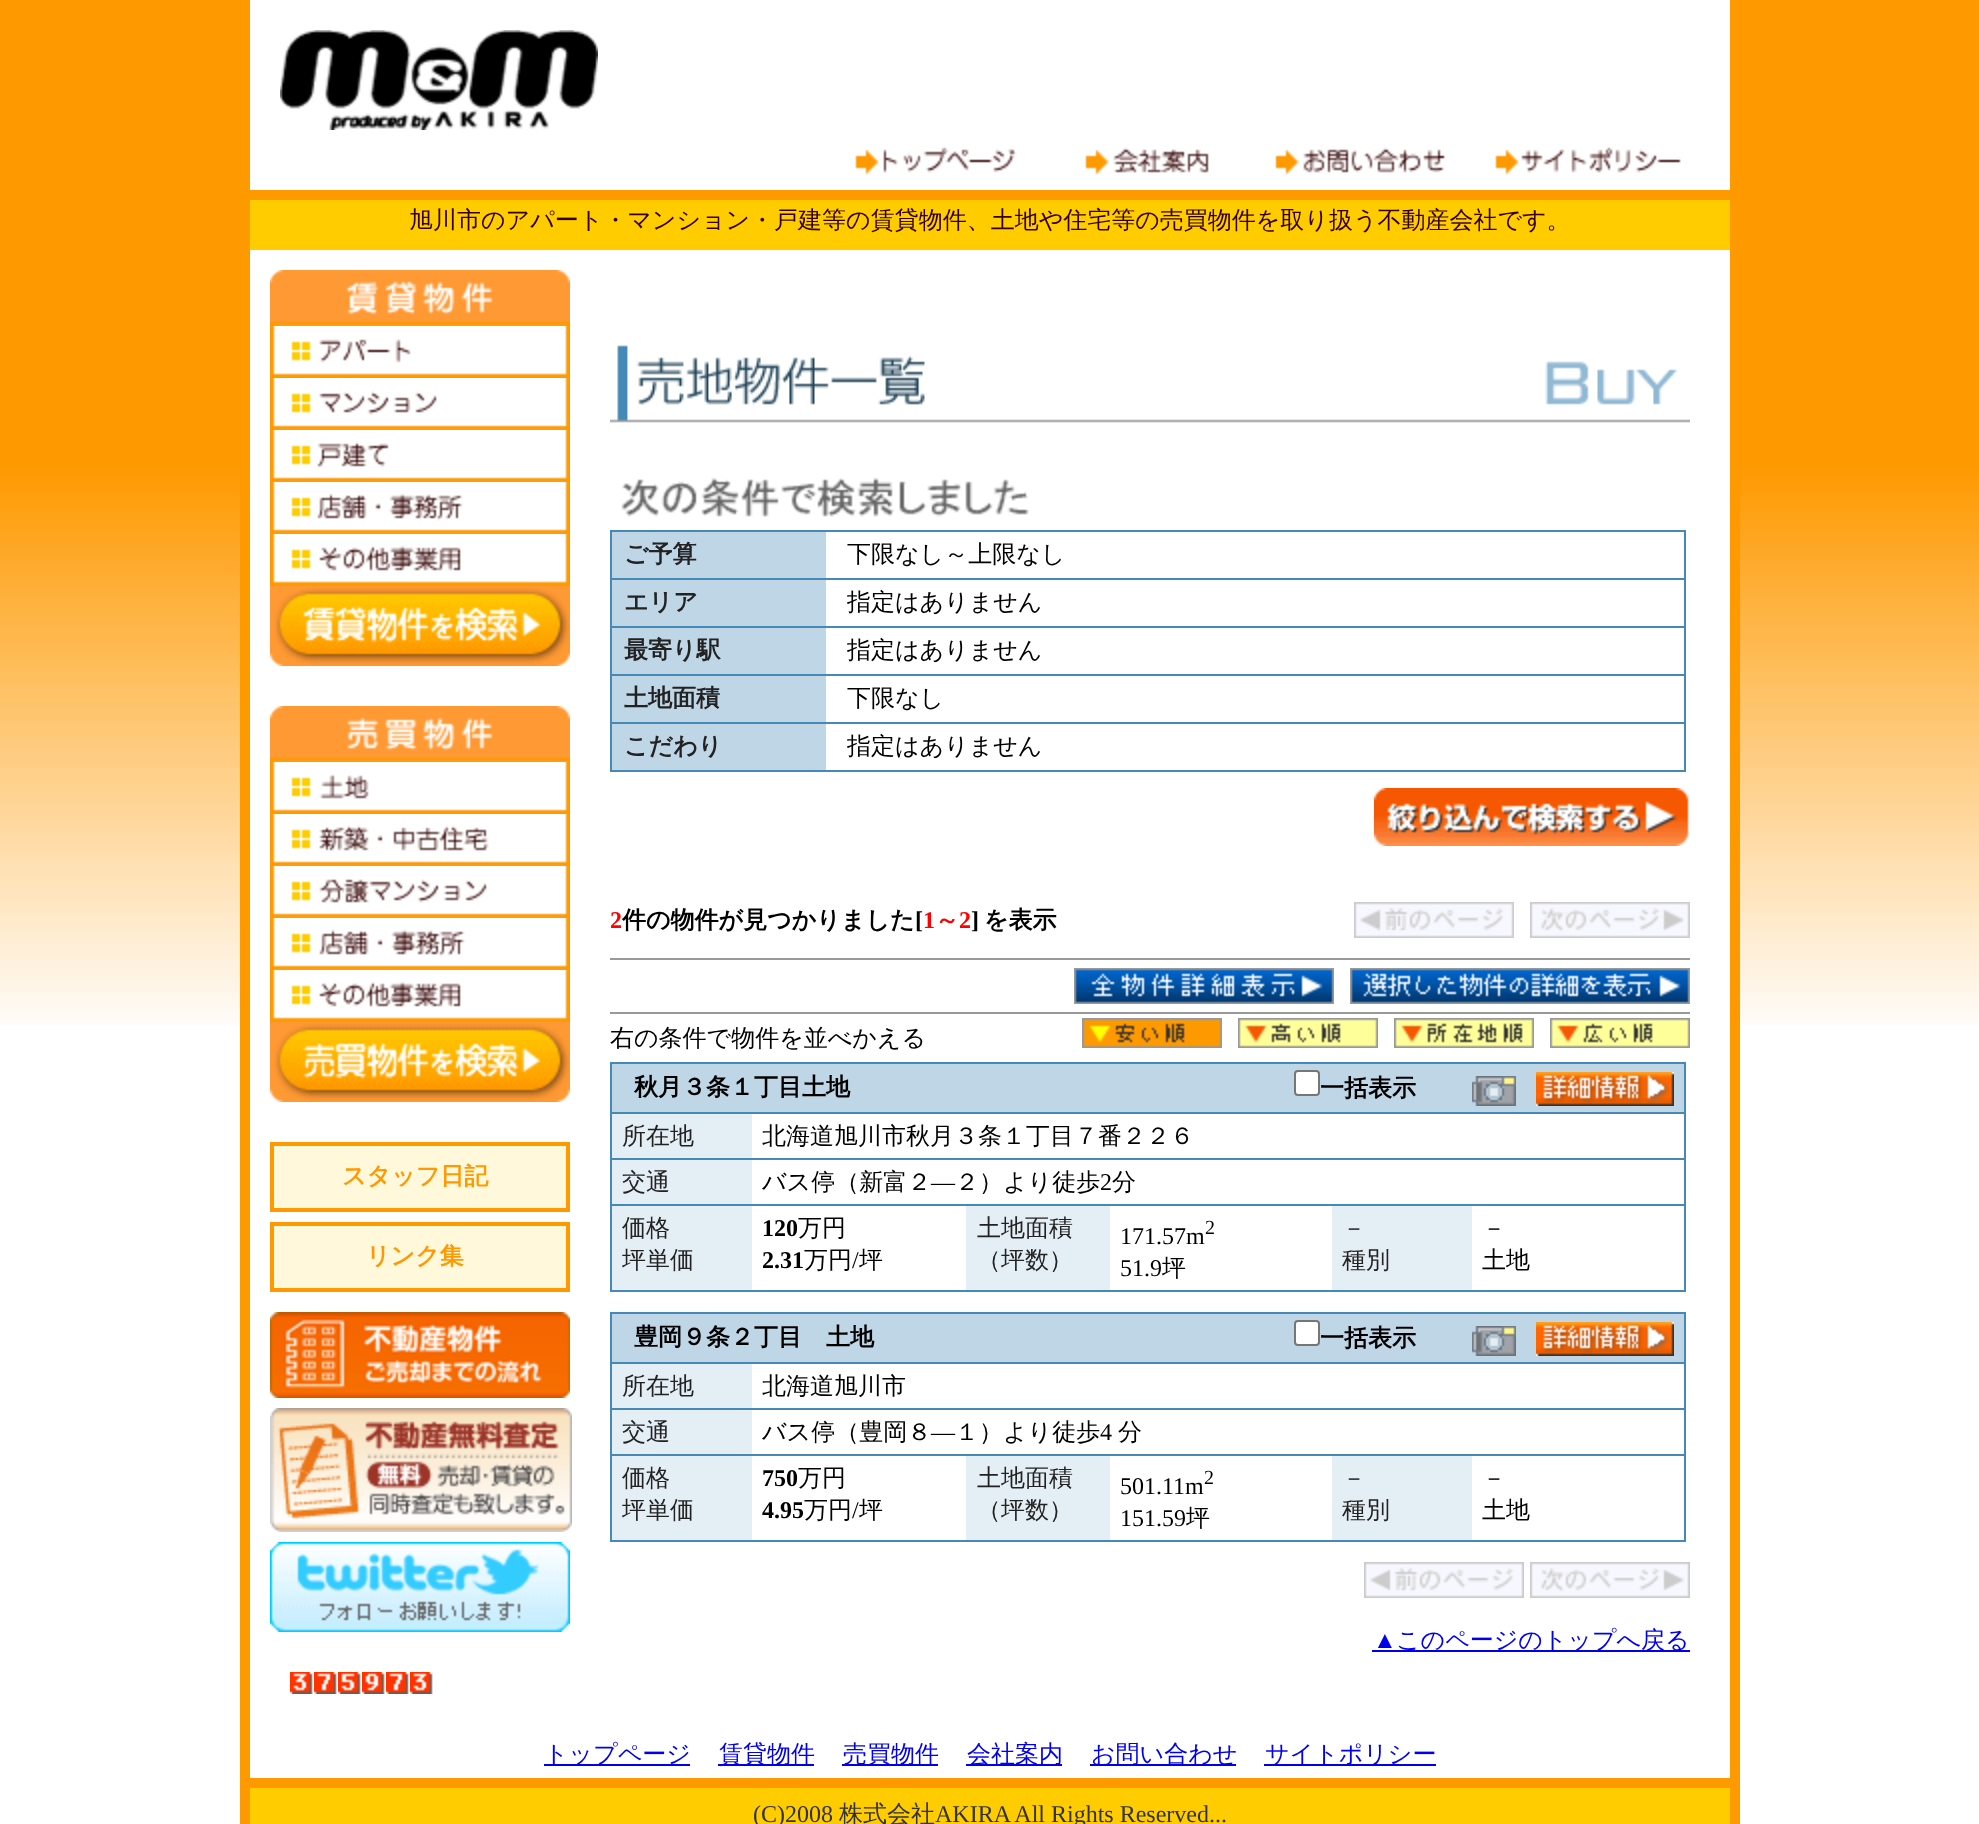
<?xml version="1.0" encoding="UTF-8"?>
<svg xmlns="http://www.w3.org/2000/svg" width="1979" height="1824">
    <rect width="100%" height="100%" fill="#FFFFFF"/>
    <image x="0" y="0" width="1979" height="1025" href="img_01.png"/>
    <rect x="250" y="0" width="1480" height="1025" fill="#FFFFFF"/>
    <rect x="1730" y="470" width="10" height="1354" fill="#FF9900"/>
    <rect x="240" y="470" width="10" height="1354" fill="#FF9900"/>
    <image x="280" y="30" width="318" height="100" href="img_02.png"/>
    <image x="855" y="147" width="162" height="28" href="img_03.png"/>
    <image x="1085" y="147" width="124" height="28" href="img_04.png"/>
    <image x="1275" y="147" width="171" height="28" href="img_05.png"/>
    <image x="1495" y="147" width="186" height="28" href="img_06.png"/>
    <rect x="250" y="200" width="1480" height="50" fill="#FFCC00"/>
    <rect x="250" y="190" width="1480" height="10" fill="#FF9900"/>
    <text x="409" y="228" font-family="WenQuanYi Zen Hei" font-size="24" font-weight="500" fill="#330000">旭川市のアパート・マンション・戸建等の賃貸物件、土地や住宅等の売買物件を取り扱う不動産会社です。</text>
    <image x="270" y="270" width="300" height="56" href="img_07.png"/>
    <image x="270" y="326" width="300" height="52" href="img_08.png"/>
    <image x="270" y="378" width="300" height="52" href="img_09.png"/>
    <image x="270" y="430" width="300" height="52" href="img_10.png"/>
    <image x="270" y="482" width="300" height="52" href="img_11.png"/>
    <image x="270" y="534" width="300" height="52" href="img_12.png"/>
    <image x="270" y="586" width="300" height="80" href="img_13.png"/>
    <image x="270" y="706" width="300" height="56" href="img_14.png"/>
    <image x="270" y="762" width="300" height="52" href="img_15.png"/>
    <image x="270" y="814" width="300" height="52" href="img_16.png"/>
    <image x="270" y="866" width="300" height="52" href="img_17.png"/>
    <image x="270" y="918" width="300" height="52" href="img_18.png"/>
    <image x="270" y="970" width="300" height="52" href="img_12.png"/>
    <image x="270" y="1022" width="300" height="80" href="img_19.png"/>
    <rect x="272" y="1144" width="296" height="66" fill="#FFF8DB" stroke="#FF9900" stroke-width="4"/>
    <text x="342" y="1184" font-family="WenQuanYi Zen Hei" font-size="24" font-weight="700" fill="#FF9900">スタッフ日記</text>
    <rect x="272" y="1224" width="296" height="66" fill="#FFF8DB" stroke="#FF9900" stroke-width="4"/>
    <text x="366" y="1264" font-family="WenQuanYi Zen Hei" font-size="24" font-weight="700" fill="#FF9900">リンク集</text>
    <image x="270" y="1312" width="300" height="86" href="img_20.png"/>
    <image x="270" y="1408" width="302" height="124" href="img_21.png"/>
    <image x="270" y="1542" width="300" height="90" href="img_22.png"/>
    <image x="290" y="1672" width="23" height="22" href="img_23.png"/>
    <image x="314" y="1672" width="23" height="22" href="img_24.png"/>
    <image x="338" y="1672" width="23" height="22" href="img_25.png"/>
    <image x="362" y="1672" width="23" height="22" href="img_26.png"/>
    <image x="386" y="1672" width="23" height="22" href="img_24.png"/>
    <image x="410" y="1672" width="23" height="22" href="img_23.png"/>
    <image x="610" y="345" width="1080" height="78" href="img_27.png"/>
    <image x="621" y="477" width="408" height="40" href="img_28.png"/>
    <rect x="610" y="530" width="1076" height="2" fill="#4689B7"/>
    <rect x="1684" y="530" width="2" height="242" fill="#4689B7"/>
    <rect x="610" y="530" width="2" height="242" fill="#4689B7"/>
    <rect x="612" y="532" width="214" height="46" fill="#BFD6E6"/>
    <rect x="612" y="578" width="1072" height="2" fill="#4689B7"/>
    <text x="624" y="562" font-family="WenQuanYi Zen Hei" font-size="24" font-weight="700" fill="#222222">ご予算</text>
    <text x="847" y="562" font-family="WenQuanYi Zen Hei" font-size="24" font-weight="500" fill="#000000">下限なし～上限なし</text>
    <rect x="612" y="580" width="214" height="46" fill="#BFD6E6"/>
    <rect x="612" y="626" width="1072" height="2" fill="#4689B7"/>
    <text x="624" y="610" font-family="WenQuanYi Zen Hei" font-size="24" font-weight="700" fill="#222222">エリア</text>
    <text x="847" y="610" font-family="WenQuanYi Zen Hei" font-size="24" font-weight="500" fill="#000000">指定はありません</text>
    <rect x="612" y="628" width="214" height="46" fill="#BFD6E6"/>
    <rect x="612" y="674" width="1072" height="2" fill="#4689B7"/>
    <text x="624" y="658" font-family="WenQuanYi Zen Hei" font-size="24" font-weight="700" fill="#222222">最寄り駅</text>
    <text x="847" y="658" font-family="WenQuanYi Zen Hei" font-size="24" font-weight="500" fill="#000000">指定はありません</text>
    <rect x="612" y="676" width="214" height="46" fill="#BFD6E6"/>
    <rect x="612" y="722" width="1072" height="2" fill="#4689B7"/>
    <text x="624" y="706" font-family="WenQuanYi Zen Hei" font-size="24" font-weight="700" fill="#222222">土地面積</text>
    <text x="847" y="706" font-family="WenQuanYi Zen Hei" font-size="24" font-weight="500" fill="#000000">下限なし</text>
    <rect x="612" y="724" width="214" height="46" fill="#BFD6E6"/>
    <rect x="612" y="770" width="1072" height="2" fill="#4689B7"/>
    <text x="624" y="754" font-family="WenQuanYi Zen Hei" font-size="24" font-weight="700" fill="#222222">こだわり</text>
    <text x="847" y="754" font-family="WenQuanYi Zen Hei" font-size="24" font-weight="500" fill="#000000">指定はありません</text>
    <image x="1374" y="788" width="315" height="58" href="img_29.png"/>
    <text x="610" y="928" font-family="Liberation Serif" font-size="24" font-weight="700" fill="#FF0000">2</text>
    <text x="622" y="928" font-family="WenQuanYi Zen Hei" font-size="24" font-weight="700" fill="#000000">件の物件が見つかりました</text>
    <text x="915" y="928" font-family="Liberation Serif" font-size="24" font-weight="700" fill="#000000">[</text>
    <text x="923" y="928" font-family="Liberation Serif" font-size="24" font-weight="700" fill="#FF0000">1</text>
    <text x="935" y="928" font-family="WenQuanYi Zen Hei" font-size="24" font-weight="700" fill="#FF0000">～</text>
    <text x="959" y="928" font-family="Liberation Serif" font-size="24" font-weight="700" fill="#FF0000">2</text>
    <text x="971" y="928" font-family="Liberation Serif" font-size="24" font-weight="700" fill="#000000">]</text>
    <text x="984" y="928" font-family="WenQuanYi Zen Hei" font-size="24" font-weight="700" fill="#000000">を表示</text>
    <image x="1354" y="902" width="160" height="36" href="img_30.png"/>
    <image x="1530" y="902" width="160" height="36" href="img_31.png"/>
    <rect x="610" y="958" width="1080" height="2" fill="#999999"/>
    <image x="1074" y="968" width="260" height="36" href="img_32.png"/>
    <image x="1350" y="968" width="340" height="36" href="img_33.png"/>
    <rect x="610" y="1012" width="1080" height="2" fill="#999999"/>
    <text x="610" y="1046" font-family="WenQuanYi Zen Hei" font-size="24" font-weight="500" fill="#000000">右の条件で物件を並べかえる</text>
    <image x="1082" y="1018" width="140" height="30" href="img_34.png"/>
    <image x="1238" y="1018" width="140" height="30" href="img_35.png"/>
    <image x="1394" y="1018" width="140" height="30" href="img_36.png"/>
    <image x="1550" y="1018" width="140" height="30" href="img_37.png"/>
    <rect x="612" y="1064" width="1072" height="48" fill="#BFD6E6"/>
    <rect x="610" y="1062" width="1076" height="2" fill="#4689B7"/>
    <rect x="1684" y="1062" width="2" height="50" fill="#4689B7"/>
    <rect x="610" y="1062" width="2" height="50" fill="#4689B7"/>
    <text x="634" y="1095" font-family="WenQuanYi Zen Hei" font-size="24" font-weight="700" fill="#000000">秋月３条１丁目土地</text>
    <rect x="1295" y="1071" width="24" height="24" rx="3" fill="#FFFFFF" stroke="#767676" stroke-width="2"/>
    <text x="1320" y="1096" font-family="WenQuanYi Zen Hei" font-size="24" font-weight="700" fill="#000000">一括表示</text>
    <image x="1472" y="1076" width="44" height="30" href="img_38.png"/>
    <image x="1536" y="1072" width="138" height="34" href="img_39.png"/>
    <rect x="610" y="1112" width="1076" height="2" fill="#4689B7"/>
    <rect x="1684" y="1112" width="2" height="180" fill="#4689B7"/>
    <rect x="610" y="1112" width="2" height="180" fill="#4689B7"/>
    <rect x="612" y="1114" width="140" height="44" fill="#E4EEF5"/>
    <rect x="612" y="1158" width="1072" height="2" fill="#4689B7"/>
    <text x="622" y="1144" font-family="WenQuanYi Zen Hei" font-size="24" font-weight="500" fill="#222222">所在地</text>
    <text x="762" y="1144" font-family="WenQuanYi Zen Hei" font-size="24" font-weight="500" fill="#000000">北海道旭川市秋月３条１丁目７番２２６</text>
    <rect x="612" y="1160" width="140" height="44" fill="#E4EEF5"/>
    <rect x="612" y="1204" width="1072" height="2" fill="#4689B7"/>
    <text x="622" y="1190" font-family="WenQuanYi Zen Hei" font-size="24" font-weight="500" fill="#222222">交通</text>
    <text x="762" y="1190" font-family="WenQuanYi Zen Hei" font-size="24" font-weight="500" fill="#000000">バス停（新富２</text>
    <text x="931" y="1190" font-family="Liberation Serif" font-size="24" fill="#000000">―</text>
    <text x="955" y="1190" font-family="WenQuanYi Zen Hei" font-size="24" font-weight="500" fill="#000000">２）より徒歩</text>
    <text x="1100" y="1190" font-family="Liberation Serif" font-size="24" fill="#000000">2</text>
    <text x="1112" y="1190" font-family="WenQuanYi Zen Hei" font-size="24" font-weight="500" fill="#000000">分</text>
    <rect x="612" y="1206" width="140" height="84" fill="#E4EEF5"/>
    <rect x="612" y="1290" width="1072" height="2" fill="#4689B7"/>
    <text font-family="WenQuanYi Zen Hei" font-size="24" font-weight="500" fill="#222222">
        <tspan x="622" y="1236">価格</tspan>
        <tspan x="622" y="1268">坪単価</tspan>
    </text>
    <text x="762" y="1236" font-family="Liberation Serif" font-size="24" font-weight="700" fill="#000000">120</text>
    <text x="798" y="1236" font-family="WenQuanYi Zen Hei" font-size="24" font-weight="500" fill="#000000">万円</text>
    <text x="762" y="1268" font-family="Liberation Serif" font-size="24" font-weight="700" fill="#000000">2.31</text>
    <text x="804" y="1268" font-family="WenQuanYi Zen Hei" font-size="24" font-weight="500" fill="#000000">万円</text>
    <text x="852" y="1268" font-family="Liberation Serif" font-size="24" fill="#000000">/</text>
    <text x="859" y="1268" font-family="WenQuanYi Zen Hei" font-size="24" font-weight="500" fill="#000000">坪</text>
    <rect x="966" y="1206" width="144" height="84" fill="#E4EEF5"/>
    <text font-family="WenQuanYi Zen Hei" font-size="24" font-weight="500" fill="#222222">
        <tspan x="977" y="1236">土地面積</tspan>
        <tspan x="977" y="1268">（坪数）</tspan>
    </text>
    <text x="1120" y="1244" font-family="Liberation Serif" font-size="24" fill="#000000">171.57m</text>
    <text x="1205" y="1234" font-family="Liberation Serif" font-size="20" fill="#000000">2</text>
    <text x="1120" y="1276" font-family="Liberation Serif" font-size="24" fill="#000000">51.9</text>
    <text x="1162" y="1276" font-family="WenQuanYi Zen Hei" font-size="24" font-weight="500" fill="#000000">坪</text>
    <rect x="1332" y="1206" width="140" height="84" fill="#E4EEF5"/>
    <text font-family="WenQuanYi Zen Hei" font-size="24" font-weight="500" fill="#222222">
        <tspan x="1342" y="1236">－</tspan>
        <tspan x="1342" y="1268">種別</tspan>
    </text>
    <text font-family="WenQuanYi Zen Hei" font-size="24" font-weight="500" fill="#000000">
        <tspan x="1482" y="1236">－</tspan>
        <tspan x="1482" y="1268">土地</tspan>
    </text>
    <rect x="612" y="1314" width="1072" height="48" fill="#BFD6E6"/>
    <rect x="610" y="1312" width="1076" height="2" fill="#4689B7"/>
    <rect x="1684" y="1312" width="2" height="50" fill="#4689B7"/>
    <rect x="610" y="1312" width="2" height="50" fill="#4689B7"/>
    <text x="634" y="1345" font-family="WenQuanYi Zen Hei" font-size="24" font-weight="700" fill="#000000">豊岡９条２丁目　土地</text>
    <rect x="1295" y="1321" width="24" height="24" rx="3" fill="#FFFFFF" stroke="#767676" stroke-width="2"/>
    <text x="1320" y="1346" font-family="WenQuanYi Zen Hei" font-size="24" font-weight="700" fill="#000000">一括表示</text>
    <image x="1472" y="1326" width="44" height="30" href="img_38.png"/>
    <image x="1536" y="1322" width="138" height="34" href="img_39.png"/>
    <rect x="610" y="1362" width="1076" height="2" fill="#4689B7"/>
    <rect x="1684" y="1362" width="2" height="180" fill="#4689B7"/>
    <rect x="610" y="1362" width="2" height="180" fill="#4689B7"/>
    <rect x="612" y="1364" width="140" height="44" fill="#E4EEF5"/>
    <rect x="612" y="1408" width="1072" height="2" fill="#4689B7"/>
    <text x="622" y="1394" font-family="WenQuanYi Zen Hei" font-size="24" font-weight="500" fill="#222222">所在地</text>
    <text x="762" y="1394" font-family="WenQuanYi Zen Hei" font-size="24" font-weight="500" fill="#000000">北海道旭川市</text>
    <rect x="612" y="1410" width="140" height="44" fill="#E4EEF5"/>
    <rect x="612" y="1454" width="1072" height="2" fill="#4689B7"/>
    <text x="622" y="1440" font-family="WenQuanYi Zen Hei" font-size="24" font-weight="500" fill="#222222">交通</text>
    <text x="762" y="1440" font-family="WenQuanYi Zen Hei" font-size="24" font-weight="500" fill="#000000">バス停（豊岡８</text>
    <text x="931" y="1440" font-family="Liberation Serif" font-size="24" fill="#000000">―</text>
    <text x="955" y="1440" font-family="WenQuanYi Zen Hei" font-size="24" font-weight="500" fill="#000000">１）より徒歩</text>
    <text x="1100" y="1440" font-family="Liberation Serif" font-size="24" fill="#000000">4</text>
    <text x="1118" y="1440" font-family="WenQuanYi Zen Hei" font-size="24" font-weight="500" fill="#000000">分</text>
    <rect x="612" y="1456" width="140" height="84" fill="#E4EEF5"/>
    <rect x="612" y="1540" width="1072" height="2" fill="#4689B7"/>
    <text font-family="WenQuanYi Zen Hei" font-size="24" font-weight="500" fill="#222222">
        <tspan x="622" y="1486">価格</tspan>
        <tspan x="622" y="1518">坪単価</tspan>
    </text>
    <text x="762" y="1486" font-family="Liberation Serif" font-size="24" font-weight="700" fill="#000000">750</text>
    <text x="798" y="1486" font-family="WenQuanYi Zen Hei" font-size="24" font-weight="500" fill="#000000">万円</text>
    <text x="762" y="1518" font-family="Liberation Serif" font-size="24" font-weight="700" fill="#000000">4.95</text>
    <text x="804" y="1518" font-family="WenQuanYi Zen Hei" font-size="24" font-weight="500" fill="#000000">万円</text>
    <text x="852" y="1518" font-family="Liberation Serif" font-size="24" fill="#000000">/</text>
    <text x="859" y="1518" font-family="WenQuanYi Zen Hei" font-size="24" font-weight="500" fill="#000000">坪</text>
    <rect x="966" y="1456" width="144" height="84" fill="#E4EEF5"/>
    <text font-family="WenQuanYi Zen Hei" font-size="24" font-weight="500" fill="#222222">
        <tspan x="977" y="1486">土地面積</tspan>
        <tspan x="977" y="1518">（坪数）</tspan>
    </text>
    <text x="1120" y="1494" font-family="Liberation Serif" font-size="24" fill="#000000">501.11m</text>
    <text x="1204" y="1484" font-family="Liberation Serif" font-size="20" fill="#000000">2</text>
    <text x="1120" y="1526" font-family="Liberation Serif" font-size="24" fill="#000000">151.59</text>
    <text x="1186" y="1526" font-family="WenQuanYi Zen Hei" font-size="24" font-weight="500" fill="#000000">坪</text>
    <rect x="1332" y="1456" width="140" height="84" fill="#E4EEF5"/>
    <text font-family="WenQuanYi Zen Hei" font-size="24" font-weight="500" fill="#222222">
        <tspan x="1342" y="1486">－</tspan>
        <tspan x="1342" y="1518">種別</tspan>
    </text>
    <text font-family="WenQuanYi Zen Hei" font-size="24" font-weight="500" fill="#000000">
        <tspan x="1482" y="1486">－</tspan>
        <tspan x="1482" y="1518">土地</tspan>
    </text>
    <image x="1364" y="1562" width="160" height="36" href="img_30.png"/>
    <image x="1530" y="1562" width="160" height="36" href="img_31.png"/>
    <text x="1373" y="1648" font-family="Liberation Serif" font-size="24" fill="#0000EE">▲</text>
    <rect x="1372" y="1650" width="318" height="2" fill="#0000EE"/>
    <text x="1396" y="1648" font-family="WenQuanYi Zen Hei" font-size="24" font-weight="500" fill="#0000EE">このページのトップへ戻る</text>
    <rect x="544" y="1764" width="146" height="2" fill="#0000EE"/>
    <text x="544" y="1762" font-family="WenQuanYi Zen Hei" font-size="24" font-weight="500" fill="#0000EE">トップページ</text>
    <rect x="718" y="1764" width="96" height="2" fill="#0000EE"/>
    <text x="719" y="1762" font-family="WenQuanYi Zen Hei" font-size="24" font-weight="500" fill="#0000EE">賃貸物件</text>
    <rect x="842" y="1764" width="96" height="2" fill="#0000EE"/>
    <text x="843" y="1762" font-family="WenQuanYi Zen Hei" font-size="24" font-weight="500" fill="#0000EE">売買物件</text>
    <rect x="966" y="1764" width="96" height="2" fill="#0000EE"/>
    <text x="967" y="1762" font-family="WenQuanYi Zen Hei" font-size="24" font-weight="500" fill="#0000EE">会社案内</text>
    <rect x="1090" y="1764" width="146" height="2" fill="#0000EE"/>
    <text x="1091" y="1762" font-family="WenQuanYi Zen Hei" font-size="24" font-weight="500" fill="#0000EE">お問い合わせ</text>
    <rect x="1264" y="1764" width="172" height="2" fill="#0000EE"/>
    <text x="1265" y="1762" font-family="WenQuanYi Zen Hei" font-size="24" font-weight="500" fill="#0000EE">サイトポリシー</text>
    <rect x="250" y="1788" width="1480" height="36" fill="#FFCC00"/>
    <rect x="250" y="1778" width="1480" height="10" fill="#FF9900"/>
    <text x="753" y="1822" font-family="Liberation Serif" font-size="24" fill="#333333">(C)2008</text>
    <text x="839" y="1822" font-family="WenQuanYi Zen Hei" font-size="24" font-weight="500" fill="#333333">株式会社</text>
    <text x="935" y="1822" font-family="Liberation Serif" font-size="24" fill="#333333">AKIRA All Rights Reserved...</text>
</svg>
